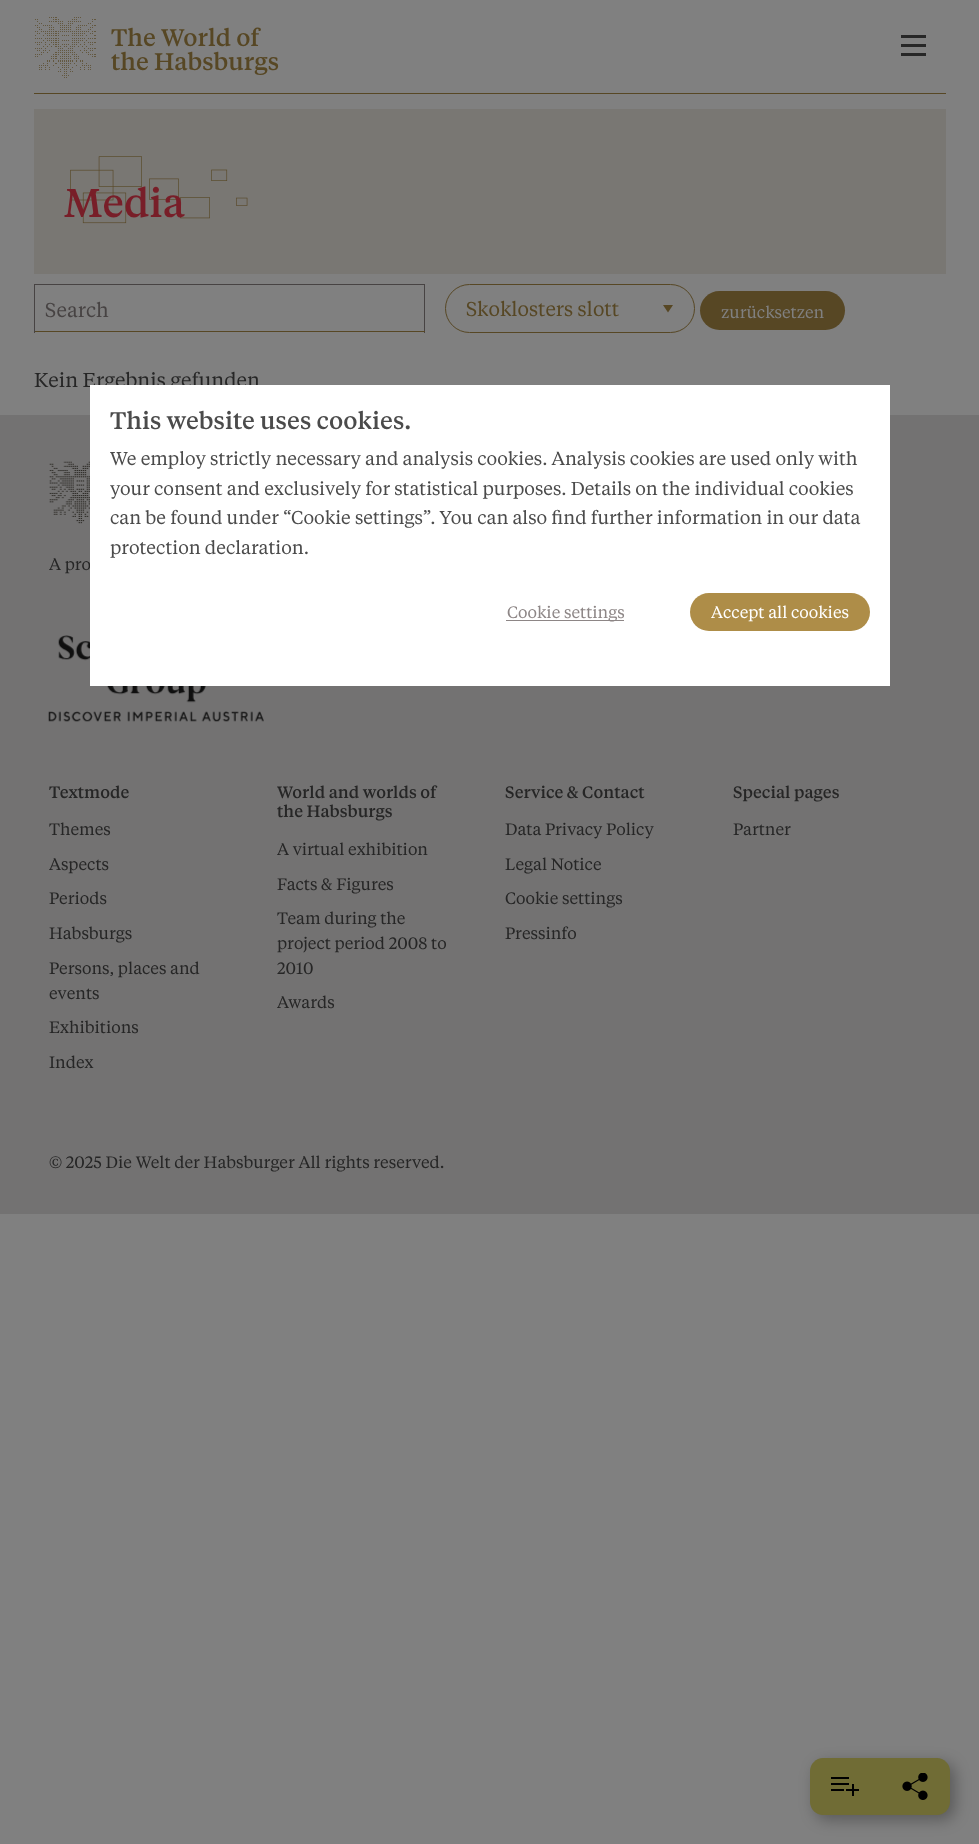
<?xml version="1.0" encoding="UTF-8"?>
<svg xmlns="http://www.w3.org/2000/svg" width="979" height="1844">
    <defs>
        <filter id="blur1" x="-50%" y="-200%" width="200%" height="500%"><feGaussianBlur stdDeviation="7.5"/></filter>
    </defs>
    <rect width="100%" height="100%" fill="#808080"/>
    <image x="35" y="17" width="61" height="61" href="img_01.png"/>
    <text font-family="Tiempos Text" font-size="24" font-weight="500" fill="#574724">
        <tspan x="111" y="46">The World of</tspan>
        <tspan x="111" y="70">the Habsburgs</tspan>
    </text>
    <rect x="901" y="53" width="25" height="3" fill="#262626"/>
    <rect x="901" y="44" width="25" height="3" fill="#262626"/>
    <rect x="901" y="35" width="25" height="3" fill="#262626"/>
    <rect x="34" y="93" width="912" height="1" fill="#574724"/>
    <rect x="34" y="109" width="912" height="165" fill="#797773"/>
    <image x="70" y="156" width="178" height="68" href="img_02.png"/>
    <text x="64" y="217" font-family="Tiempos Text" font-size="40" font-weight="500" fill="#781E28">Media</text>
    <rect x="34" y="284" width="391" height="1" fill="#474343"/>
    <rect x="424" y="284" width="1" height="49" fill="#474343"/>
    <rect x="34" y="331" width="391" height="1" fill="#574724"/>
    <rect x="34" y="284" width="1" height="49" fill="#474343"/>
    <text x="45" y="317" font-family="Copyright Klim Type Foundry" font-size="20" fill="#474343">Search</text>
    <path d="M 663 305 H 673 L 668 312.5 Z" fill="#574724"/>
    <rect x="445.5" y="284.5" width="249" height="48" rx="24" fill="none" stroke="#574724"/>
    <text x="466" y="316" font-family="Copyright Klim Type Foundry" font-size="20" fill="#574724">Skoklosters slott</text>
    <rect x="700" y="291" width="145" height="39" rx="19.5" fill="#574724"/>
    <text x="721" y="318" font-family="Copyright Klim Type Foundry" font-size="16.5" fill="#808080">zurücksetzen</text>
    <text x="34" y="387" font-family="Copyright Klim Type Foundry" font-size="20" fill="#262626">Kein Ergebnis gefunden</text>
    <rect x="0" y="415" width="979" height="799" fill="#737272"/>
    <image x="49" y="461" width="41" height="63" href="img_03.png"/>
    <text x="49" y="570" font-family="Copyright Klim Type Foundry" font-size="16.5" fill="#262626">A pro</text>
    <image x="48" y="635" width="216" height="87" href="img_04.png"/>
    <text x="49" y="798" font-family="Tiempos Text" font-size="16.5" font-weight="500" fill="#262626">Textmode</text>
    <text x="49" y="835" font-family="Copyright Klim Type Foundry" font-size="16.5" fill="#262626">Themes</text>
    <text x="49" y="870" font-family="Copyright Klim Type Foundry" font-size="16.5" fill="#262626">Aspects</text>
    <text x="49" y="904" font-family="Copyright Klim Type Foundry" font-size="16.5" fill="#262626">Periods</text>
    <text x="49" y="939" font-family="Copyright Klim Type Foundry" font-size="16.5" fill="#262626">Habsburgs</text>
    <text font-family="Copyright Klim Type Foundry" font-size="16.5" fill="#262626">
        <tspan x="49" y="974">Persons, places and</tspan>
        <tspan x="49" y="999">events</tspan>
    </text>
    <text x="49" y="1033" font-family="Copyright Klim Type Foundry" font-size="16.5" fill="#262626">Exhibitions</text>
    <text x="49" y="1068" font-family="Copyright Klim Type Foundry" font-size="16.5" fill="#262626">Index</text>
    <text font-family="Tiempos Text" font-size="16.5" font-weight="500" fill="#262626">
        <tspan x="277" y="798">World and worlds of</tspan>
        <tspan x="277" y="817">the Habsburgs</tspan>
    </text>
    <text x="277" y="855" font-family="Copyright Klim Type Foundry" font-size="16.5" fill="#262626">A virtual exhibition</text>
    <text x="277" y="890" font-family="Copyright Klim Type Foundry" font-size="16.5" fill="#262626">Facts &amp; Figures</text>
    <text font-family="Copyright Klim Type Foundry" font-size="16.5" fill="#262626">
        <tspan x="277" y="924">Team during the</tspan>
        <tspan x="277" y="949">project period 2008 to</tspan>
        <tspan x="277" y="974">2010</tspan>
    </text>
    <text x="277" y="1008" font-family="Copyright Klim Type Foundry" font-size="16.5" fill="#262626">Awards</text>
    <text x="505" y="798" font-family="Tiempos Text" font-size="16.5" font-weight="500" fill="#262626">Service &amp; Contact</text>
    <text x="505" y="835" font-family="Copyright Klim Type Foundry" font-size="16.5" fill="#262626">Data Privacy Policy</text>
    <text x="505" y="870" font-family="Copyright Klim Type Foundry" font-size="16.5" fill="#262626">Legal Notice</text>
    <text x="505" y="904" font-family="Copyright Klim Type Foundry" font-size="16.5" fill="#262626">Cookie settings</text>
    <text x="505" y="939" font-family="Copyright Klim Type Foundry" font-size="16.5" fill="#262626">Pressinfo</text>
    <text x="733" y="798" font-family="Tiempos Text" font-size="16.5" font-weight="500" fill="#262626">Special pages</text>
    <text x="733" y="835" font-family="Copyright Klim Type Foundry" font-size="16.5" fill="#262626">Partner</text>
    <text x="49" y="1168" font-family="Copyright Klim Type Foundry" font-size="16.5" fill="#262626">© 2025 Die Welt der Habsburger All rights reserved.</text>
    <rect x="90" y="385" width="800" height="301" fill="#FFFFFF"/>
    <text x="110" y="429" font-family="Tiempos Text" font-size="24" font-weight="500" fill="#4B4B4B">This website uses cookies.</text>
    <text font-family="Copyright Klim Type Foundry" font-size="18.5" fill="#4B4B4B">
        <tspan x="110" y="465">We employ strictly necessary and analysis cookies. Analysis cookies are used only with</tspan>
        <tspan x="110" y="495">your consent and exclusively for statistical purposes. Details on the individual cookies</tspan>
        <tspan x="110" y="524">can be found under “Cookie settings”. You can also find further information in our data</tspan>
        <tspan x="110" y="554">protection declaration.</tspan>
    </text>
    <rect x="506" y="620" width="118" height="1" fill="#8D8686"/>
    <text x="507" y="618" font-family="Copyright Klim Type Foundry" font-size="16.5" fill="#8D8686">Cookie settings</text>
    <rect x="690" y="593" width="180" height="38" rx="19" fill="#AE8D48"/>
    <text x="711" y="618" font-family="Copyright Klim Type Foundry" font-size="16.5" fill="#FFFFFF">Accept all cookies</text>
    <rect x="815" y="1763" width="140" height="57" rx="13" fill="#000000" fill-opacity="0.3" filter="url(#blur1)"/>
    <path d="M 823 1758 H 880 V 1815 H 823 C 816 1815 810 1809 810 1802 V 1771 C 810 1764 816 1758 823 1758 Z" fill="#706C35"/>
    <rect x="831" y="1777" width="18" height="2" fill="#000000"/>
    <rect x="831" y="1783" width="18" height="2" fill="#000000"/>
    <rect x="846" y="1789" width="13" height="2" fill="#000000"/>
    <rect x="852" y="1784" width="2" height="12" fill="#000000"/>
    <rect x="831" y="1789" width="13" height="2" fill="#000000"/>
    <path d="M 880 1758 H 937 C 944 1758 950 1764 950 1771 V 1802 C 950 1809 944 1815 937 1815 H 880 Z" fill="#706C35"/>
    <image x="902" y="1773" width="26" height="27" href="img_05.png"/>
</svg>
